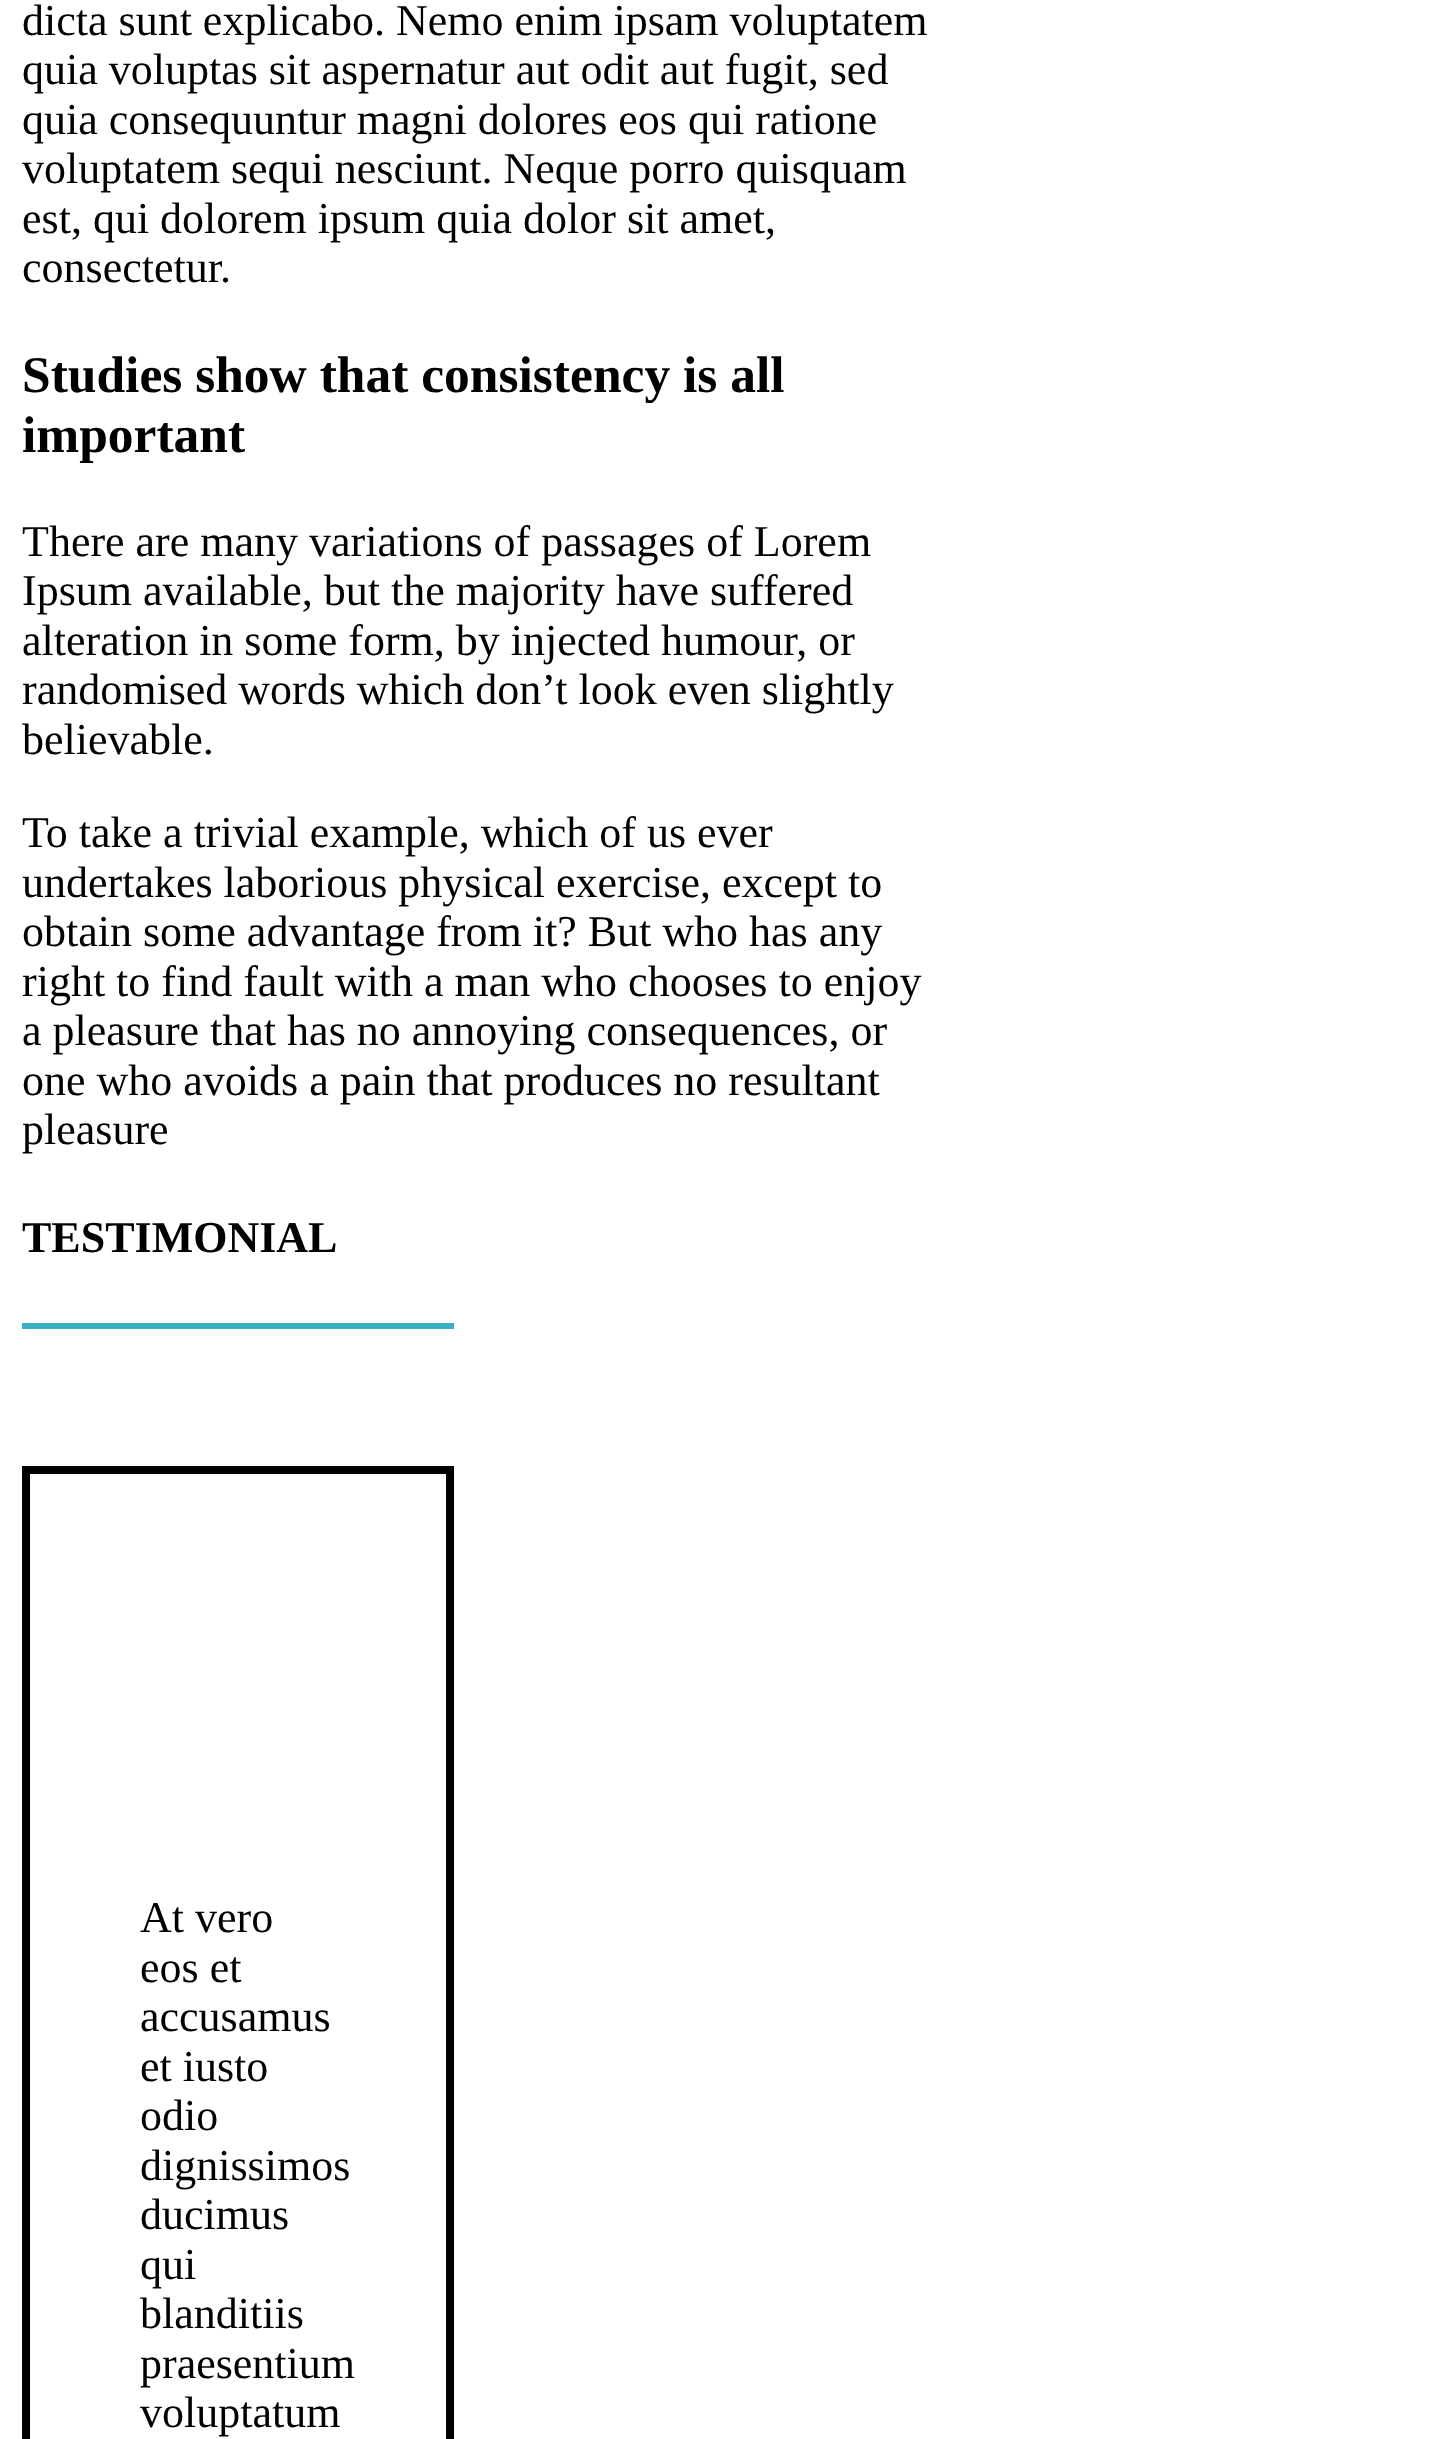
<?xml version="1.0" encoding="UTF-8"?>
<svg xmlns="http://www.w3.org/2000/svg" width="1448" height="2439">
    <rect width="100%" height="100%" fill="#FFFFFF"/>
    <text font-family="Liberation Serif" font-size="44" fill="#000000">
        <tspan x="22" y="35">dicta sunt explicabo. Nemo enim ipsam voluptatem</tspan>
        <tspan x="22" y="84">quia voluptas sit aspernatur aut odit aut fugit, sed</tspan>
        <tspan x="22" y="134">quia consequuntur magni dolores eos qui ratione</tspan>
        <tspan x="22" y="183">voluptatem sequi nesciunt. Neque porro quisquam</tspan>
        <tspan x="22" y="233">est, qui dolorem ipsum quia dolor sit amet,</tspan>
        <tspan x="22" y="282">consectetur.</tspan>
    </text>
    <text font-family="Liberation Serif" font-size="51.5" font-weight="700" fill="#000000">
        <tspan x="22" y="392">Studies show that consistency is all</tspan>
        <tspan x="22" y="452">important</tspan>
    </text>
    <text font-family="Liberation Serif" font-size="44" fill="#000000">
        <tspan x="22" y="556">There are many variations of passages of Lorem</tspan>
        <tspan x="22" y="605">Ipsum available, but the majority have suffered</tspan>
        <tspan x="22" y="655">alteration in some form, by injected humour, or</tspan>
        <tspan x="22" y="704">randomised words which don’t look even slightly</tspan>
        <tspan x="22" y="754">believable.</tspan>
    </text>
    <text font-family="Liberation Serif" font-size="44" fill="#000000">
        <tspan x="22" y="847">To take a trivial example, which of us ever</tspan>
        <tspan x="22" y="897">undertakes laborious physical exercise, except to</tspan>
        <tspan x="22" y="946">obtain some advantage from it? But who has any</tspan>
        <tspan x="22" y="996">right to find fault with a man who chooses to enjoy</tspan>
        <tspan x="22" y="1045">a pleasure that has no annoying consequences, or</tspan>
        <tspan x="22" y="1095">one who avoids a pain that produces no resultant</tspan>
        <tspan x="22" y="1144">pleasure</tspan>
    </text>
    <text x="22" y="1252" font-family="Liberation Serif" font-size="44" font-weight="700" fill="#000000">TESTIMONIAL</text>
    <rect x="22" y="1323" width="432" height="6" fill="#3BAFBF"/>
    <rect x="26" y="1470" width="424" height="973" fill="none" stroke="#000000" stroke-width="8"/>
    <text font-family="Liberation Serif" font-size="44" fill="#000000">
        <tspan x="140" y="1932">At vero</tspan>
        <tspan x="140" y="1982">eos et</tspan>
        <tspan x="140" y="2031">accusamus</tspan>
        <tspan x="140" y="2081">et iusto</tspan>
        <tspan x="140" y="2130">odio</tspan>
        <tspan x="140" y="2180">dignissimos</tspan>
        <tspan x="140" y="2229">ducimus</tspan>
        <tspan x="140" y="2279">qui</tspan>
        <tspan x="140" y="2328">blanditiis</tspan>
        <tspan x="140" y="2378">praesentium</tspan>
        <tspan x="140" y="2427">voluptatum</tspan>
    </text>
</svg>
